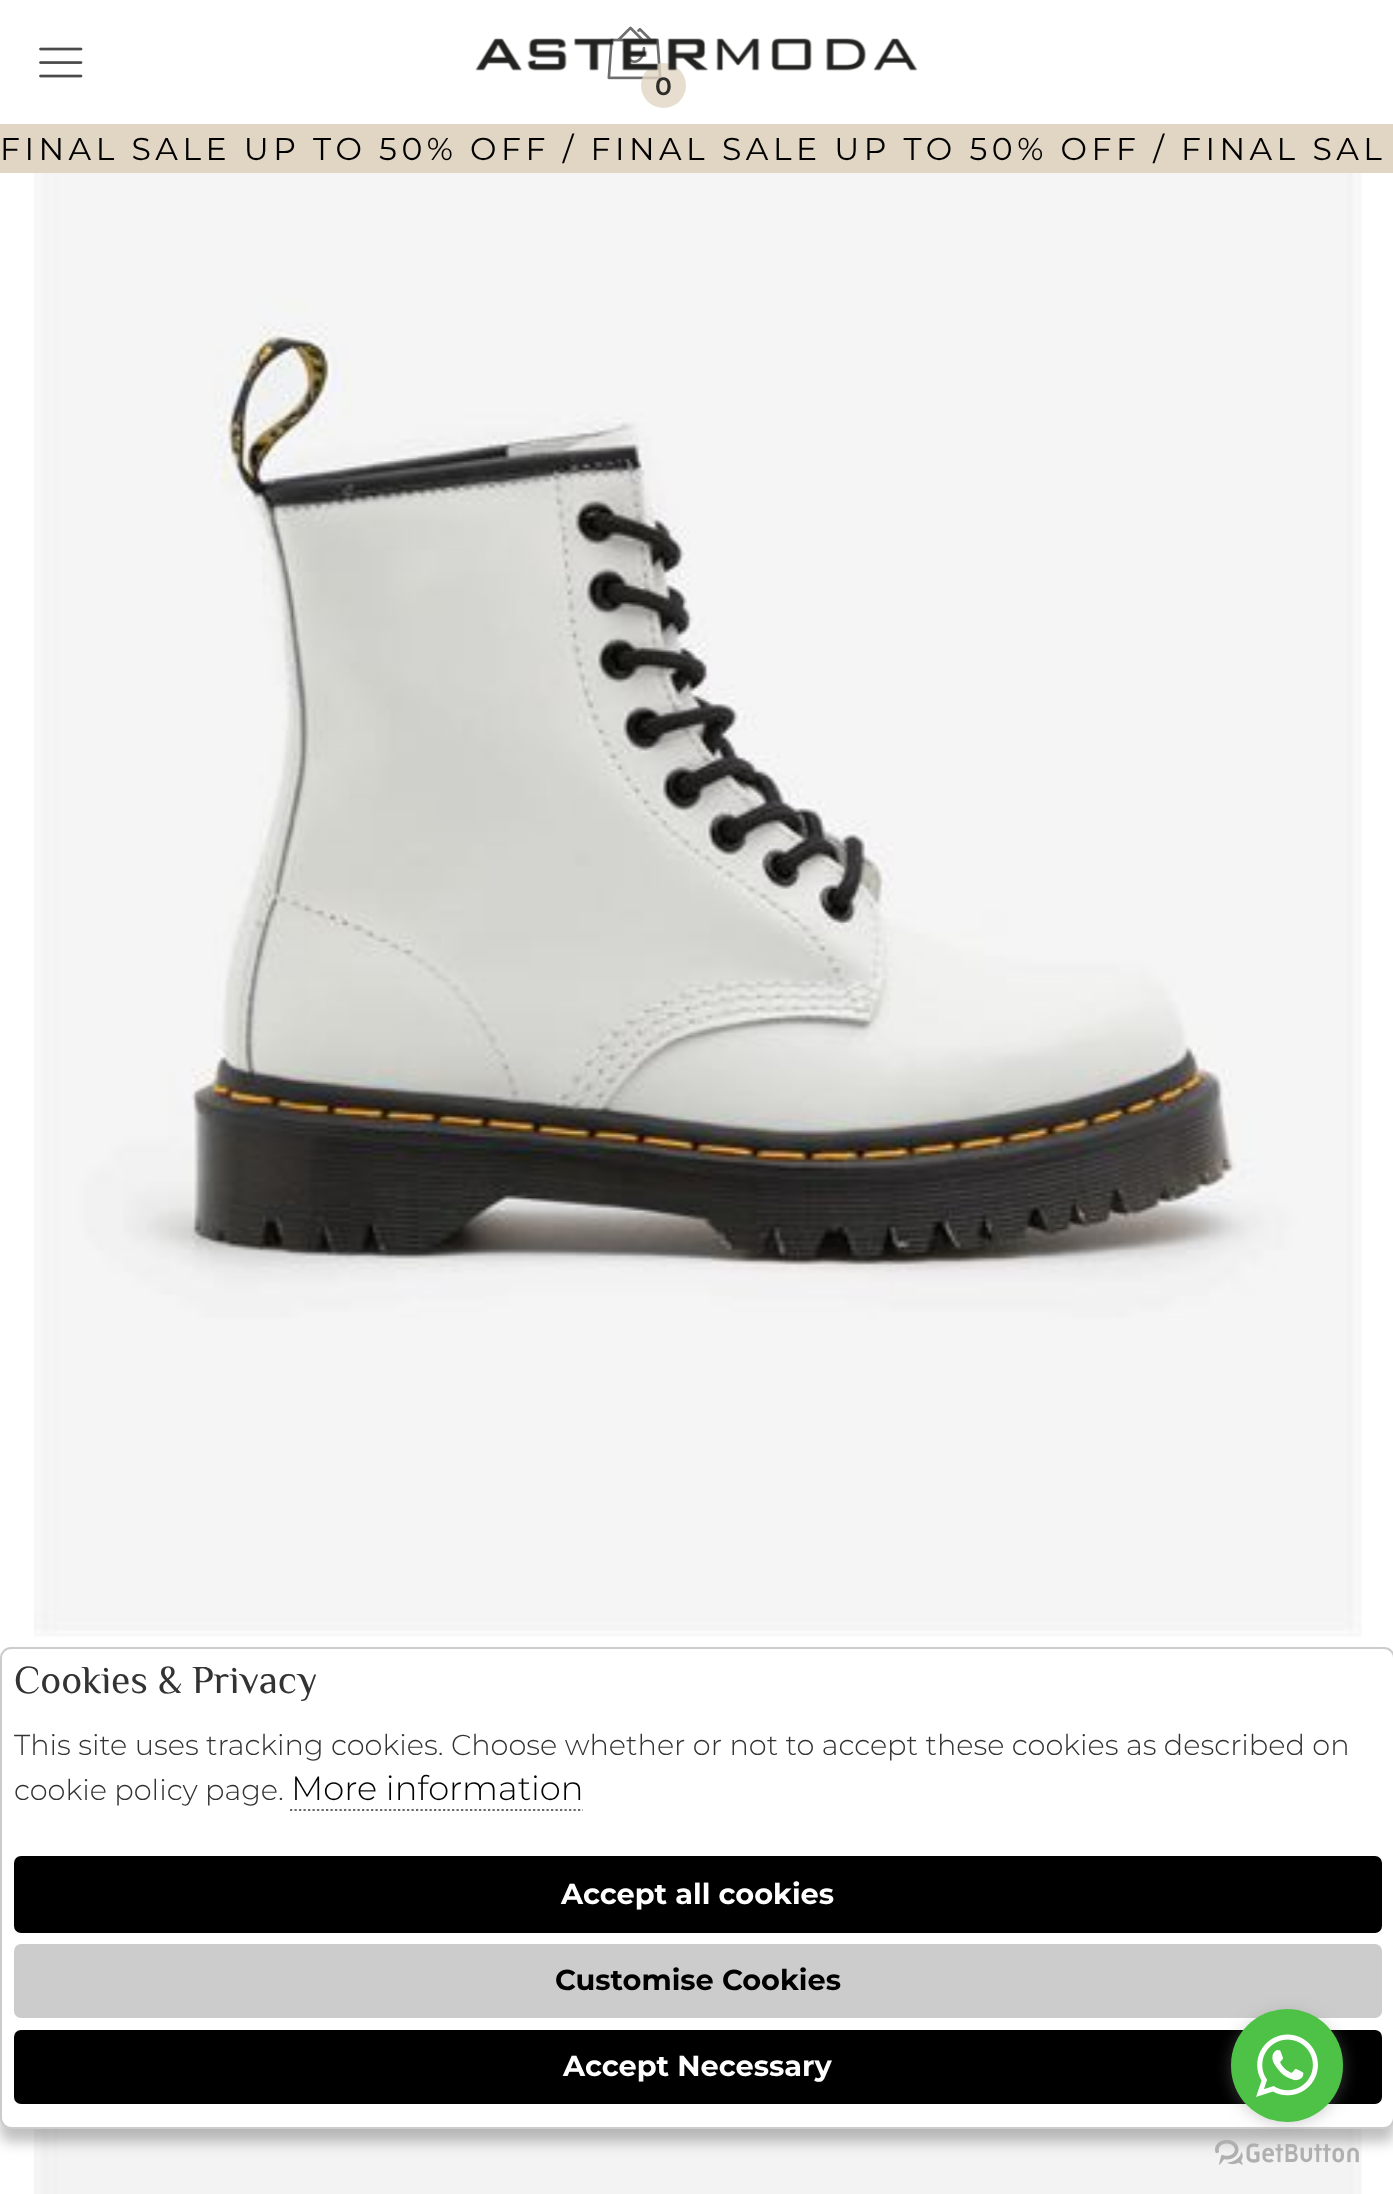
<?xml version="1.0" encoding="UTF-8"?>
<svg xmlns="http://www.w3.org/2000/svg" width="1393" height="2194">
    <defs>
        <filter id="blur1" x="-50%" y="-200%" width="200%" height="500%"><feGaussianBlur stdDeviation="7"/></filter>
        <filter id="blur2" x="-50%" y="-200%" width="200%" height="500%"><feGaussianBlur stdDeviation="8"/></filter>
    </defs>
    <rect width="100%" height="100%" fill="#FFFFFF"/>
    <image x="39" y="47" width="44" height="31" href="img_01.png"/>
    <image x="607" y="26" width="55" height="54" href="img_03.png"/>
    <circle cx="663.5" cy="85.5" r="22.5" fill="#E1D6C3" fill-opacity="0.8"/>
    <image x="475" y="38" width="443" height="33" href="img_02.png"/>
    <text x="655" y="95" font-family="Montserrat" font-size="25" font-weight="600" fill="#2E2C29">0</text>
    <rect x="0" y="124" width="1393" height="49" fill="#E1D6C3"/>
    <text x="0" y="160" font-family="Montserrat" font-size="31.5" letter-spacing="4.5" fill="#000000">FINAL SALE UP TO 50% OFF / FINAL SALE UP TO 50% OFF / FINAL SAL</text>
    <image x="34" y="173" width="1328" height="1464" href="img_04.png"/>
    <image x="34" y="2129" width="1328" height="65" href="img_05.png"/>
    <rect x="0" y="1661" width="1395" height="481" rx="11" fill="#000000" fill-opacity="0.25" filter="url(#blur1)"/>
    <rect x="1" y="1648" width="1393" height="480" rx="10" fill="#FFFFFF" stroke="#CCCCCC" stroke-width="2"/>
    <text x="14" y="1693" font-family="Philosopher" font-size="39.5" fill="#333333">Cookies &amp; Privacy</text>
    <text font-family="Montserrat" font-size="28.8" font-weight="300" fill="#333333">
        <tspan x="14" y="1755">This site uses tracking cookies. Choose whether or not to accept these cookies as described on</tspan>
        <tspan x="14" y="1800">cookie policy page.</tspan>
    </text>
    <text x="291" y="1800" font-family="Montserrat" font-size="33.75" font-weight="300" fill="#000000">More information</text>
    <path d="M 290 1810 H 583" fill="none" stroke="#696969" stroke-width="2.2" stroke-dasharray="2.25 2.25"/>
    <rect x="14" y="1856" width="1368" height="77" rx="7" fill="#000000"/>
    <text x="561" y="1904" font-family="Montserrat" font-size="28.8" font-weight="700" fill="#FFFFFF">Accept all cookies</text>
    <rect x="14" y="1944" width="1368" height="74" rx="7" fill="#CCCCCC"/>
    <text x="555" y="1990" font-family="Montserrat" font-size="28.8" font-weight="700" fill="#000000">Customise Cookies</text>
    <rect x="14" y="2030" width="1368" height="74" rx="7" fill="#000000"/>
    <text x="563" y="2076" font-family="Montserrat" font-size="28.8" font-weight="700" fill="#FFFFFF">Accept Necessary</text>
    <image x="1215" y="2140" width="144" height="25" href="img_07.png"/>
    <rect x="1231" y="2012" width="112" height="112" rx="56" fill="#888888" fill-opacity="0.4" filter="url(#blur2)"/>
    <rect x="1231" y="2009" width="112" height="113" rx="56" fill="#4DC247"/>
    <image x="1256" y="2034" width="62" height="63" href="img_06.png"/>
</svg>
